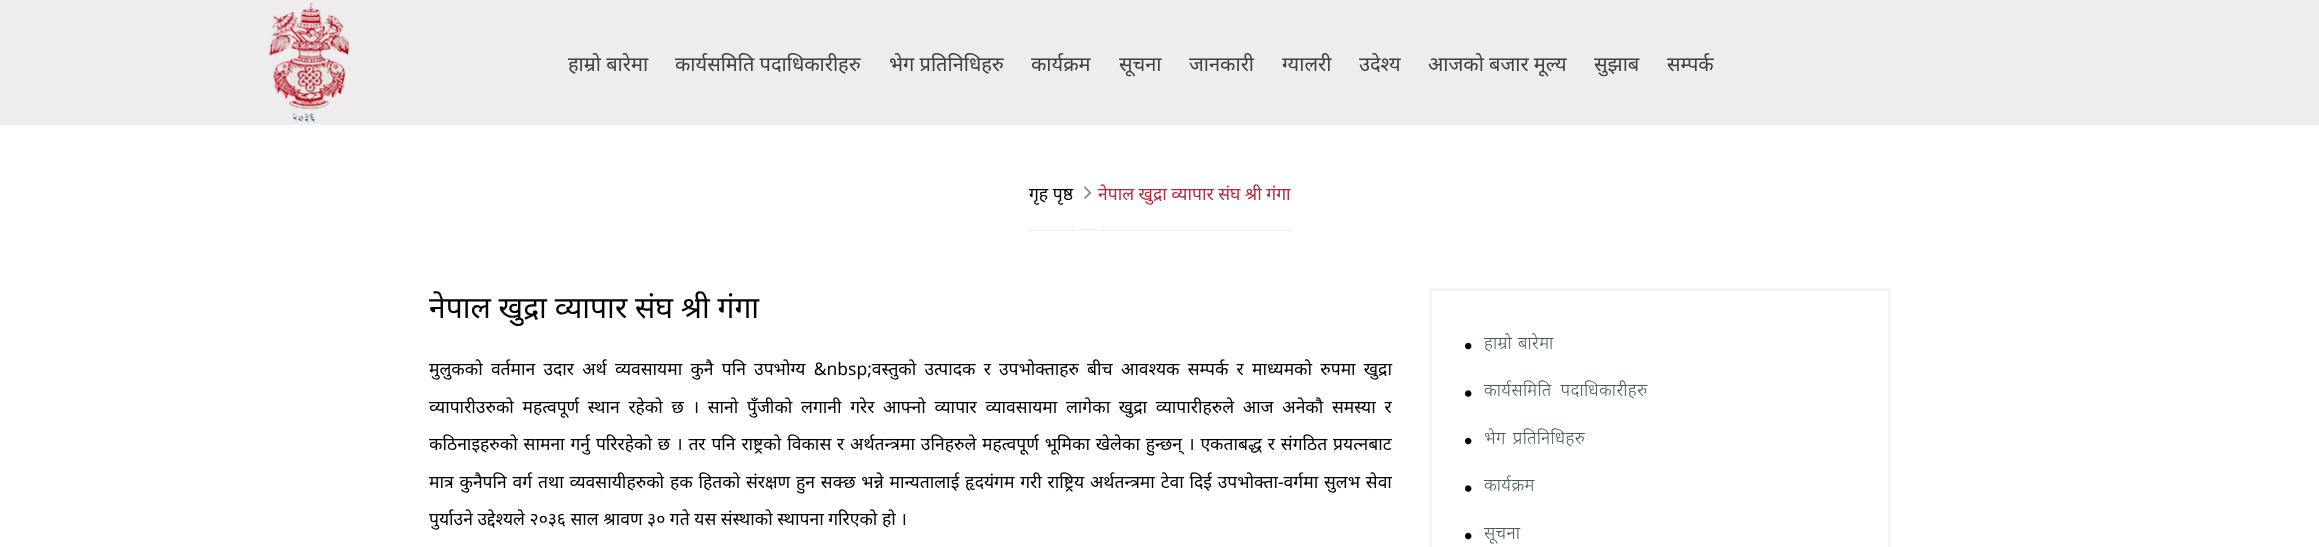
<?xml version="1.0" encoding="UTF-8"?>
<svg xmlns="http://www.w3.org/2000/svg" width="2319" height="547">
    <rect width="100%" height="100%" fill="#FFFFFF"/>
    <rect x="0" y="0" width="2319" height="125" fill="#EEECEF"/>
    <image x="268" y="2" width="82" height="121" href="img_01.png"/>
    <text x="568" y="71" font-family="Noto Sans" font-size="20" fill="#404040">हाम्रो बारेमा</text>
    <text x="675" y="71" font-family="Noto Sans" font-size="20" fill="#404040">कार्यसमिति पदाधिकारीहरु</text>
    <text x="889" y="71" font-family="Noto Sans" font-size="20" fill="#404040">भेग प्रतिनिधिहरु</text>
    <text x="1031" y="71" font-family="Noto Sans" font-size="20" fill="#404040">कार्यक्रम</text>
    <text x="1119" y="71" font-family="Noto Sans" font-size="20" fill="#404040">सूचना</text>
    <text x="1189" y="71" font-family="Noto Sans" font-size="20" fill="#404040">जानकारी</text>
    <text x="1282" y="71" font-family="Noto Sans" font-size="20" fill="#404040">ग्यालरी</text>
    <text x="1359" y="71" font-family="Noto Sans" font-size="20" fill="#404040">उदेश्य</text>
    <text x="1428" y="71" font-family="Noto Sans" font-size="20" fill="#404040">आजको बजार मूल्य</text>
    <text x="1594" y="71" font-family="Noto Sans" font-size="20" fill="#404040">सुझाब</text>
    <text x="1667" y="71" font-family="Noto Sans" font-size="20" fill="#404040">सम्पर्क</text>
    <text x="1029" y="200" font-family="Noto Sans" font-size="17.5" fill="#000000">गृह पृष्ठ</text>
    <rect x="1029" y="230" width="49" height="1" fill="#EBECEB"/>
    <rect x="1078" y="229" width="20" height="1" fill="#EBECEB"/>
    <image x="1084" y="186" width="8" height="13" href="img_02.png"/>
    <text x="1098" y="200" font-family="Noto Sans" font-size="17.5" fill="#BB283A">नेपाल खुद्रा व्यापार संघ श्री गंगा</text>
    <rect x="1098" y="230" width="193" height="1" fill="#EBECEB"/>
    <text x="429" y="318" font-family="Noto Sans" font-size="30" fill="#000000">नेपाल खुद्रा व्यापार संघ श्री गंगा</text>
    <text x="429" y="375" word-spacing="3.6" font-family="Noto Sans" font-size="17.5" fill="#000000">मुलुकको वर्तमान उदार अर्थ व्यवसायमा कुनै पनि उपभोग्य &amp;nbsp;वस्तुको उत्पादक र उपभोक्ताहरु बीच आवश्यक सम्पर्क र माध्यमको रुपमा खुद्रा</text>
    <text x="429" y="413" word-spacing="4.1" font-family="Noto Sans" font-size="17.5" fill="#000000">व्यापारीउरुको महत्वपूर्ण स्थान रहेको छ । सानो पुँजीको लगानी गरेर आफ्नो व्यापार व्यावसायमा लागेका खुद्रा व्यापारीहरुले आज अनेकौ समस्या र</text>
    <text x="429" y="450" word-spacing="1.3" font-family="Noto Sans" font-size="17.5" fill="#000000">कठिनाइहरुको सामना गर्नु परिरहेको छ । तर पनि राष्ट्रको विकास र अर्थतन्त्रमा उनिहरुले महत्वपूर्ण भूमिका खेलेका हुन्छन् । एकताबद्ध र संगठित प्रयत्नबाट</text>
    <text x="429" y="488" word-spacing="1.25" font-family="Noto Sans" font-size="17.5" fill="#000000">मात्र कुनैपनि वर्ग तथा व्यवसायीहरुको हक हितको संरक्षण हुन सक्छ भन्ने मान्यतालाई हृदयंगम गरी राष्ट्रिय अर्थतन्त्रमा टेवा दिई उपभोक्ता-वर्गमा सुलभ सेवा</text>
    <text x="429" y="525" font-family="Noto Sans" font-size="17.5" fill="#000000">पुर्याउने उद्देश्यले २०३६ साल श्रावण ३० गते यस संस्थाको स्थापना गरिएको हो ।</text>
    <rect x="1430.5" y="289.5" width="459" height="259" fill="none" stroke="#F5F5F5" stroke-width="3"/>
    <image x="1465" y="342" width="7" height="8" href="img_03.png"/>
    <text x="1484" y="349" word-spacing="1" font-family="Noto Sans" font-size="17.5" font-weight="300" letter-spacing="0.4" fill="#435A52">हाम्रो बारेमा</text>
    <image x="1465" y="390" width="7" height="7" href="img_04.png"/>
    <text x="1484" y="396" word-spacing="4" font-family="Noto Sans" font-size="17.5" font-weight="300" letter-spacing="0.4" fill="#435A52">कार्यसमिति पदाधिकारीहरु</text>
    <image x="1465" y="437" width="7" height="8" href="img_03.png"/>
    <text x="1484" y="444" word-spacing="2" font-family="Noto Sans" font-size="17.5" font-weight="300" letter-spacing="0.4" fill="#435A52">भेग प्रतिनिधिहरु</text>
    <image x="1465" y="485" width="7" height="7" href="img_04.png"/>
    <text x="1484" y="491" font-family="Noto Sans" font-size="17.5" font-weight="300" letter-spacing="0.4" fill="#435A52">कार्यक्रम</text>
    <image x="1465" y="532" width="7" height="8" href="img_03.png"/>
    <text x="1484" y="539" font-family="Noto Sans" font-size="17.5" font-weight="300" letter-spacing="0.4" fill="#435A52">सूचना</text>
</svg>
